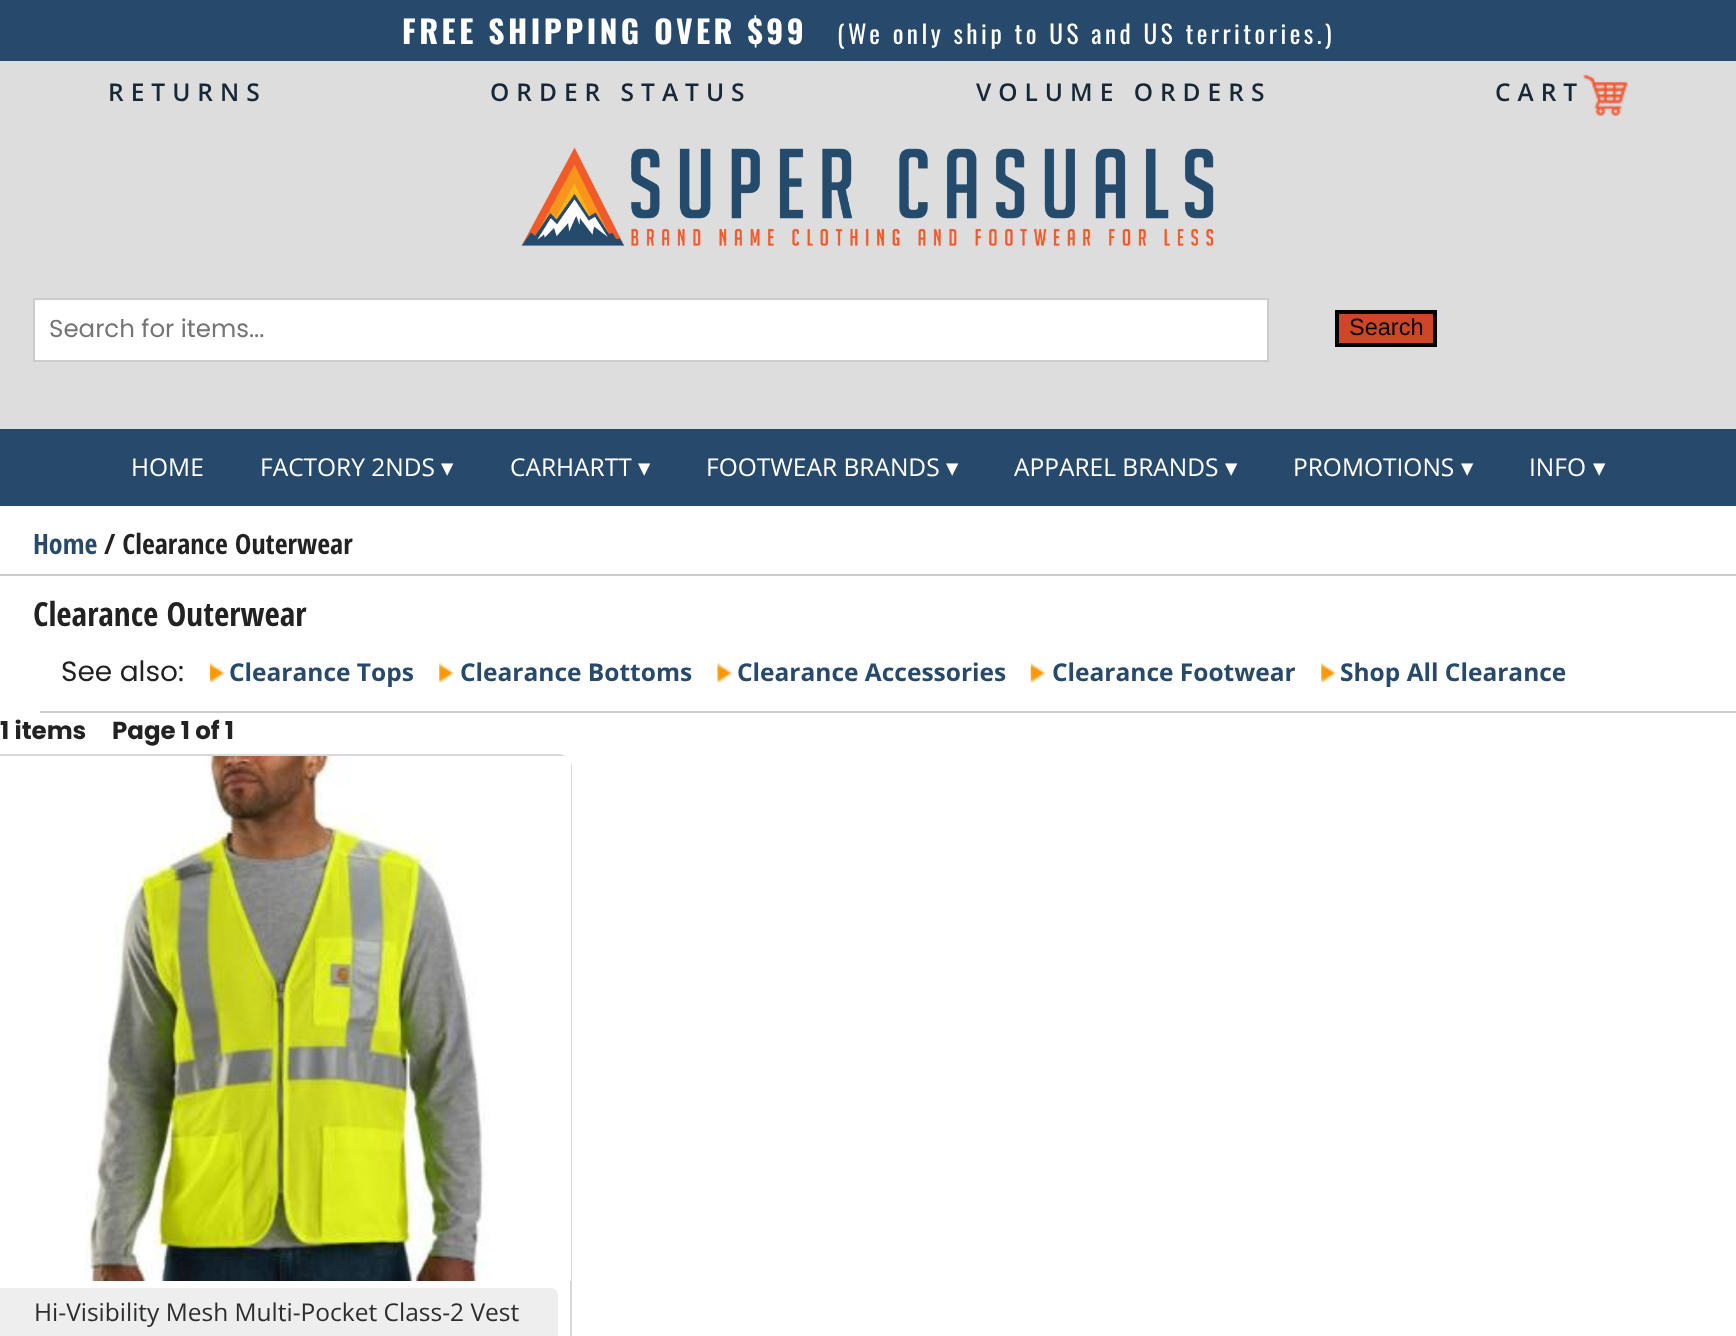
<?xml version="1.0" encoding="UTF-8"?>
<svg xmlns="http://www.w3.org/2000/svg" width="1736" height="1336">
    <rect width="100%" height="100%" fill="#FFFFFF"/>
    <rect x="0" y="0" width="1736" height="61" fill="#274A6C"/>
    <text x="402" y="44" font-family="Oswald" font-size="31.5" font-weight="700" letter-spacing="3.5" fill="#FFFFFF">FREE SHIPPING OVER $99</text>
    <text x="837" y="44" font-family="Oswald" font-size="25.25" letter-spacing="3.5" fill="#FFFFFF">(We only ship to US and US territories.)</text>
    <rect x="0" y="61" width="1736" height="368" fill="#DDDDDD"/>
    <text x="108" y="101" font-family="Open Sans" font-size="24.5" font-weight="600" letter-spacing="7" fill="#162737">RETURNS</text>
    <text x="490" y="101" font-family="Open Sans" font-size="24.5" font-weight="600" letter-spacing="7" fill="#162737">ORDER STATUS</text>
    <text x="976" y="101" font-family="Open Sans" font-size="24.5" font-weight="600" letter-spacing="7" fill="#162737">VOLUME ORDERS</text>
    <text x="1495" y="101" font-family="Open Sans" font-size="24.5" font-weight="600" letter-spacing="7" fill="#162737">CART</text>
    <image x="1583" y="74" width="45" height="42" href="img_01.png"/>
    <image x="521" y="147" width="693" height="99" href="img_02.png"/>
    <rect x="34" y="299" width="1234" height="62" fill="#FFFFFF" stroke="#CCCCCC" stroke-width="2"/>
    <text x="49" y="337" font-family="Poppins" font-size="24.5" fill="#757575">Search for items...</text>
    <rect x="1337" y="312" width="98" height="33" fill="#CE4626" stroke="#000000" stroke-width="4"/>
    <text x="1349" y="335" font-family="Liberation Sans" font-size="23.5" fill="#000000">Search</text>
    <rect x="0" y="429" width="1736" height="77" fill="#274A6C"/>
    <text x="131" y="476" font-family="Open Sans" font-size="24.5" fill="#FFFFFF">HOME</text>
    <text x="260" y="476" font-family="Open Sans" font-size="24.5" fill="#FFFFFF">FACTORY 2NDS</text>
    <text x="441" y="476" font-family="DejaVu Sans" font-size="24.5" fill="#FFFFFF">▾</text>
    <text x="510" y="476" font-family="Open Sans" font-size="24.5" fill="#FFFFFF">CARHARTT</text>
    <text x="638" y="476" font-family="DejaVu Sans" font-size="24.5" fill="#FFFFFF">▾</text>
    <text x="706" y="476" font-family="Open Sans" font-size="24.5" fill="#FFFFFF">FOOTWEAR BRANDS</text>
    <text x="946" y="476" font-family="DejaVu Sans" font-size="24.5" fill="#FFFFFF">▾</text>
    <text x="1014" y="476" font-family="Open Sans" font-size="24.5" fill="#FFFFFF">APPAREL BRANDS</text>
    <text x="1225" y="476" font-family="DejaVu Sans" font-size="24.5" fill="#FFFFFF">▾</text>
    <text x="1293" y="476" font-family="Open Sans" font-size="24.5" fill="#FFFFFF">PROMOTIONS</text>
    <text x="1461" y="476" font-family="DejaVu Sans" font-size="24.5" fill="#FFFFFF">▾</text>
    <text x="1529" y="476" font-family="Open Sans" font-size="24.5" fill="#FFFFFF">INFO</text>
    <text x="1593" y="476" font-family="DejaVu Sans" font-size="24.5" fill="#FFFFFF">▾</text>
    <rect x="0" y="574" width="1736" height="2" fill="#CCCCCC"/>
    <text x="33" y="554" font-family="Open Sans Condensed" font-size="28" font-weight="700" fill="#274A6C">Home</text>
    <text x="104" y="554" font-family="Open Sans Condensed" font-size="28" font-weight="700" fill="#222222">/ Clearance Outerwear</text>
    <text x="33" y="626" font-family="Open Sans Condensed" font-size="33.25" font-weight="700" fill="#222222">Clearance Outerwear</text>
    <rect x="40" y="711" width="1696" height="2" fill="#CCCCCC"/>
    <text x="61" y="681" font-family="Poppins" font-size="28" fill="#222222">See also:</text>
    <image x="210" y="663" width="14" height="20" href="img_03.png"/>
    <text x="229" y="681" font-family="Open Sans" font-size="24.5" font-weight="700" fill="#274A6C">Clearance Tops</text>
    <image x="439" y="663" width="15" height="20" href="img_04.png"/>
    <text x="460" y="681" font-family="Open Sans" font-size="24.5" font-weight="700" fill="#274A6C">Clearance Bottoms</text>
    <image x="717" y="663" width="15" height="20" href="img_05.png"/>
    <text x="737" y="681" font-family="Open Sans" font-size="24.5" font-weight="700" fill="#274A6C">Clearance Accessories</text>
    <image x="1030" y="663" width="15" height="20" href="img_06.png"/>
    <text x="1052" y="681" font-family="Open Sans" font-size="24.5" font-weight="700" fill="#274A6C">Clearance Footwear</text>
    <image x="1321" y="663" width="15" height="20" href="img_04.png"/>
    <text x="1340" y="681" font-family="Open Sans" font-size="24.5" font-weight="700" fill="#274A6C">Shop All Clearance</text>
    <text x="0" y="739" font-family="Poppins" font-size="24.5" font-weight="700" fill="#222222">1 items</text>
    <text x="112" y="739" font-family="Poppins" font-size="24.5" font-weight="700" fill="#222222">Page 1 of 1</text>
    <rect x="-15" y="755" width="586" height="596" rx="13" fill="none" stroke="#D8D8D8" stroke-width="2"/>
    <rect x="559" y="756" width="12" height="525" fill="#FFFFFF"/>
    <image x="84" y="756" width="406" height="525" href="img_07.png"/>
    <rect x="-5" y="1288" width="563" height="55" rx="7" fill="#EEEEEE"/>
    <text x="34" y="1321" font-family="Open Sans" font-size="24.5" fill="#2B2D2E">Hi-Visibility Mesh Multi-Pocket Class-2 Vest</text>
</svg>
